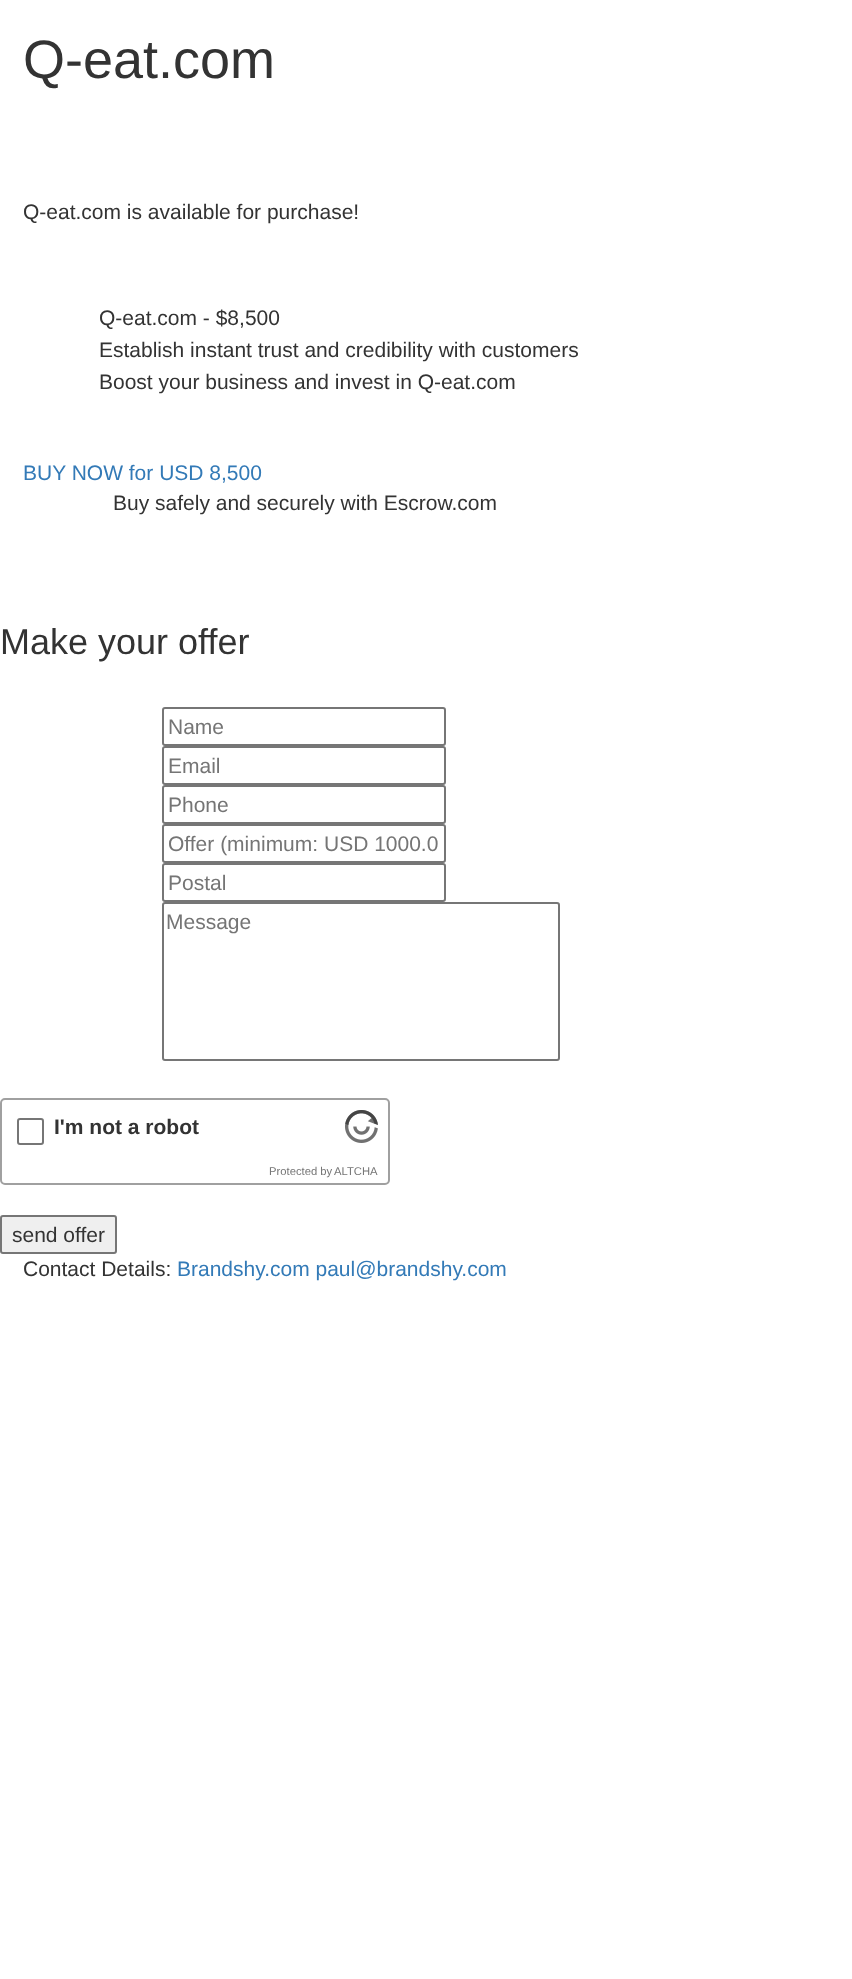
<?xml version="1.0" encoding="UTF-8"?>
<svg xmlns="http://www.w3.org/2000/svg" width="852" height="1979">
    <rect width="100%" height="100%" fill="#FFFFFF"/>
    <text x="23" y="78" font-family="Liberation Sans" font-size="54" fill="#333333">Q-eat.com</text>
    <text x="23" y="219" font-family="Liberation Sans" font-size="21" fill="#333333">Q-eat.com is available for purchase!</text>
    <text font-family="Liberation Sans" font-size="21" fill="#333333">
        <tspan x="99" y="325">Q-eat.com - $8,500</tspan>
        <tspan x="99" y="357">Establish instant trust and credibility with customers</tspan>
        <tspan x="99" y="389">Boost your business and invest in Q-eat.com</tspan>
    </text>
    <text x="23" y="480" font-family="Liberation Sans" font-size="21" fill="#337AB7">BUY NOW for USD 8,500</text>
    <text x="113" y="510" font-family="Liberation Sans" font-size="21" fill="#333333">Buy safely and securely with Escrow.com</text>
    <text x="0" y="654" font-family="Liberation Sans" font-size="36" fill="#333333">Make your offer</text>
    <rect x="163" y="708" width="282" height="37" rx="2" fill="none" stroke="#767676" stroke-width="2"/>
    <text x="168" y="734" font-family="Liberation Sans" font-size="21" fill="#757575">Name</text>
    <rect x="163" y="747" width="282" height="37" rx="2" fill="none" stroke="#767676" stroke-width="2"/>
    <text x="168" y="773" font-family="Liberation Sans" font-size="21" fill="#757575">Email</text>
    <rect x="163" y="786" width="282" height="37" rx="2" fill="none" stroke="#767676" stroke-width="2"/>
    <text x="168" y="812" font-family="Liberation Sans" font-size="21" fill="#757575">Phone</text>
    <rect x="163" y="825" width="282" height="37" rx="2" fill="none" stroke="#767676" stroke-width="2"/>
    <text x="168" y="851" font-family="Liberation Sans" font-size="21" fill="#757575">Offer (minimum: USD 1000.0</text>
    <rect x="163" y="864" width="282" height="37" rx="2" fill="none" stroke="#767676" stroke-width="2"/>
    <text x="168" y="890" font-family="Liberation Sans" font-size="21" fill="#757575">Postal</text>
    <rect x="163" y="903" width="396" height="157" rx="2" fill="none" stroke="#767676" stroke-width="2"/>
    <text x="166" y="929" font-family="Liberation Sans" font-size="21" fill="#757575">Message</text>
    <rect x="1" y="1099" width="388" height="85" rx="4" fill="none" stroke="#A0A0A0" stroke-width="2"/>
    <rect x="18" y="1119" width="25" height="25" rx="2" fill="none" stroke="#767676" stroke-width="2"/>
    <text x="54" y="1134" font-family="Liberation Sans" font-size="21" font-weight="700" fill="#333333">I'm not a robot</text>
    <image x="345" y="1110" width="33" height="33" href="img_01.png"/>
    <text x="269" y="1175" font-family="Liberation Sans" font-size="11.25" fill="#757575">Protected by</text>
    <text x="334" y="1175" font-family="Liberation Sans" font-size="11.25" fill="#757575">ALTCHA</text>
    <rect x="1" y="1216" width="115" height="37" rx="2" fill="#EFEFEF" stroke="#767676" stroke-width="2"/>
    <text x="12" y="1242" font-family="Liberation Sans" font-size="21" fill="#333333">send offer</text>
    <text x="23" y="1276" font-family="Liberation Sans" font-size="21" fill="#333333">Contact Details:</text>
    <text x="177" y="1276" font-family="Liberation Sans" font-size="21" fill="#337AB7">Brandshy.com paul@brandshy.com</text>
</svg>
